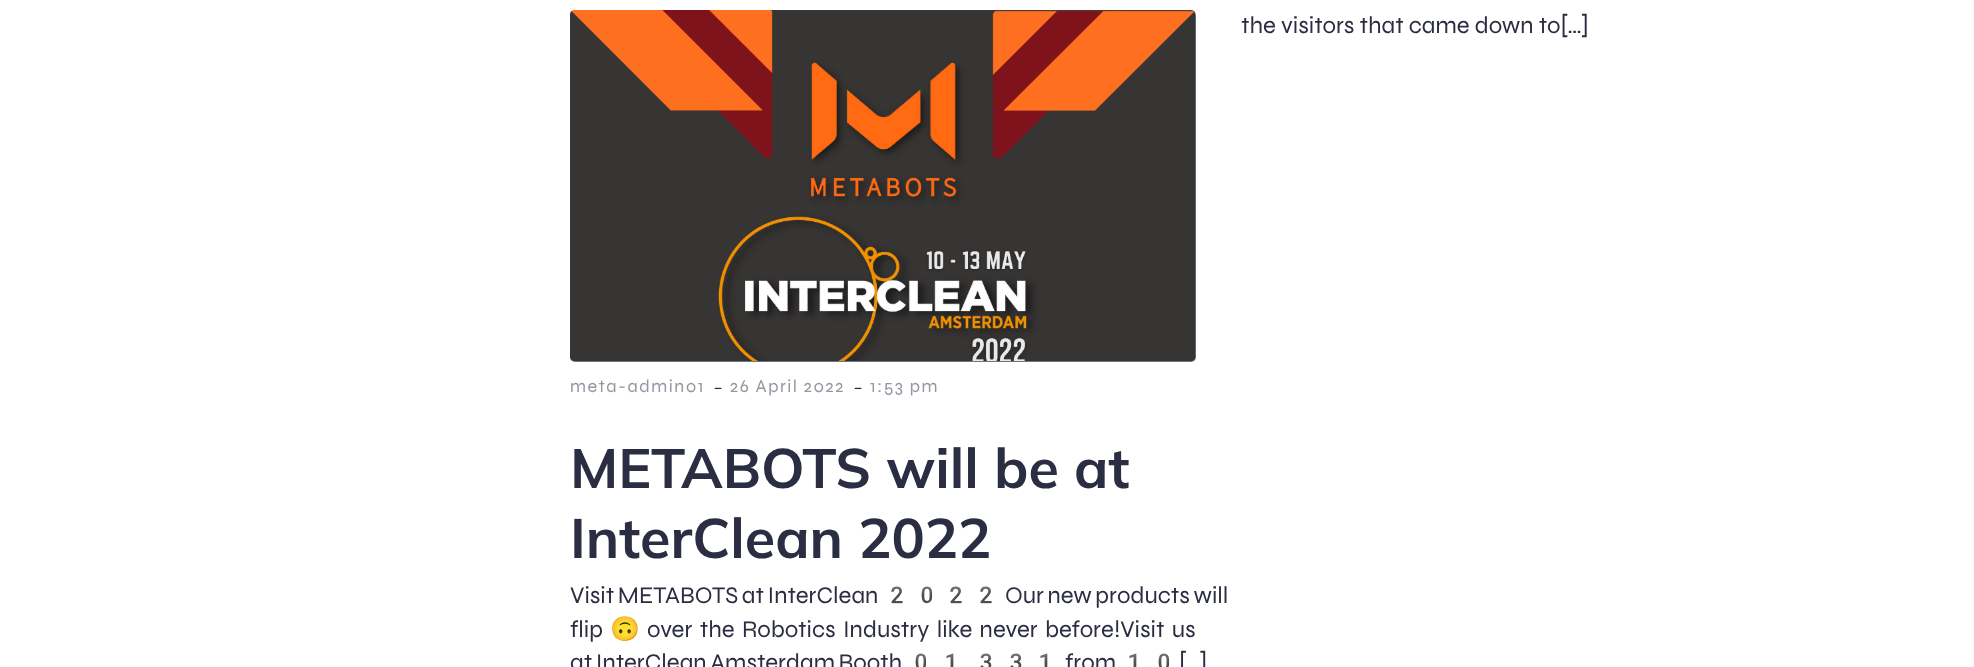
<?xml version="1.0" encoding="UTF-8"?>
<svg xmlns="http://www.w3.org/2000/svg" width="1974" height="667">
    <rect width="100%" height="100%" fill="#FFFFFF"/>
    <text x="1241" y="33" font-family="Syne" font-size="24" fill="#2B2D42">the visitors that came down to[…]</text>
    <rect x="570" y="11" width="626" height="351" rx="5" fill="#69768B"/>
    <image x="570" y="10" width="626" height="351" href="img_01.png"/>
    <text x="570" y="392" font-family="Syne" font-size="18" letter-spacing="1.5" fill="#9596A1">meta-admin01</text>
    <text x="713" y="395" font-family="Mulish" font-size="24" font-weight="300" fill="#2B2D42">-</text>
    <text x="730" y="392" font-family="Syne" font-size="18" letter-spacing="1.5" fill="#9596A1">26 April 2022</text>
    <text x="853" y="395" font-family="Mulish" font-size="24" font-weight="300" fill="#2B2D42">-</text>
    <text x="870" y="392" font-family="Syne" font-size="18" letter-spacing="1.5" fill="#9596A1">1:53 pm</text>
    <text font-family="Mulish" font-size="55.5" font-weight="700" fill="#2B2D42">
        <tspan x="570" y="488">METABOTS will be at</tspan>
        <tspan x="570" y="558">InterClean 2022</tspan>
    </text>
    <text x="570" y="603" word-spacing="-1.5" font-family="Syne" font-size="24" fill="#2B2D42">Visit METABOTS at InterClean</text>
    <text x="882" y="603" font-family="Noto Color Emoji" font-size="24" fill="#2B2D42">2022</text>
    <text x="1005" y="603" word-spacing="-1.5" font-family="Syne" font-size="24" fill="#2B2D42">Our new products will</text>
    <text x="570" y="637" font-family="Syne" font-size="24" fill="#2B2D42">flip</text>
    <text x="610" y="637" font-family="Noto Color Emoji" font-size="24" fill="#2B2D42">🙃</text>
    <text x="647" y="637" word-spacing="2.25" font-family="Syne" font-size="24" fill="#2B2D42">over the Robotics Industry like never before!Visit us</text>
    <text x="570" y="670" word-spacing="-1.5" font-family="Syne" font-size="24" fill="#2B2D42">at InterClean Amsterdam Booth</text>
    <text x="906" y="670" font-family="Noto Color Emoji" font-size="24" fill="#2B2D42">01</text>
    <text x="971" y="670" font-family="Noto Color Emoji" font-size="24" fill="#2B2D42">331</text>
    <text x="1065" y="670" font-family="Syne" font-size="24" fill="#2B2D42">from</text>
    <text x="1119" y="670" font-family="Noto Color Emoji" font-size="24" fill="#2B2D42">10</text>
    <text x="1179" y="670" font-family="Syne" font-size="24" fill="#2B2D42">[…]</text>
</svg>
